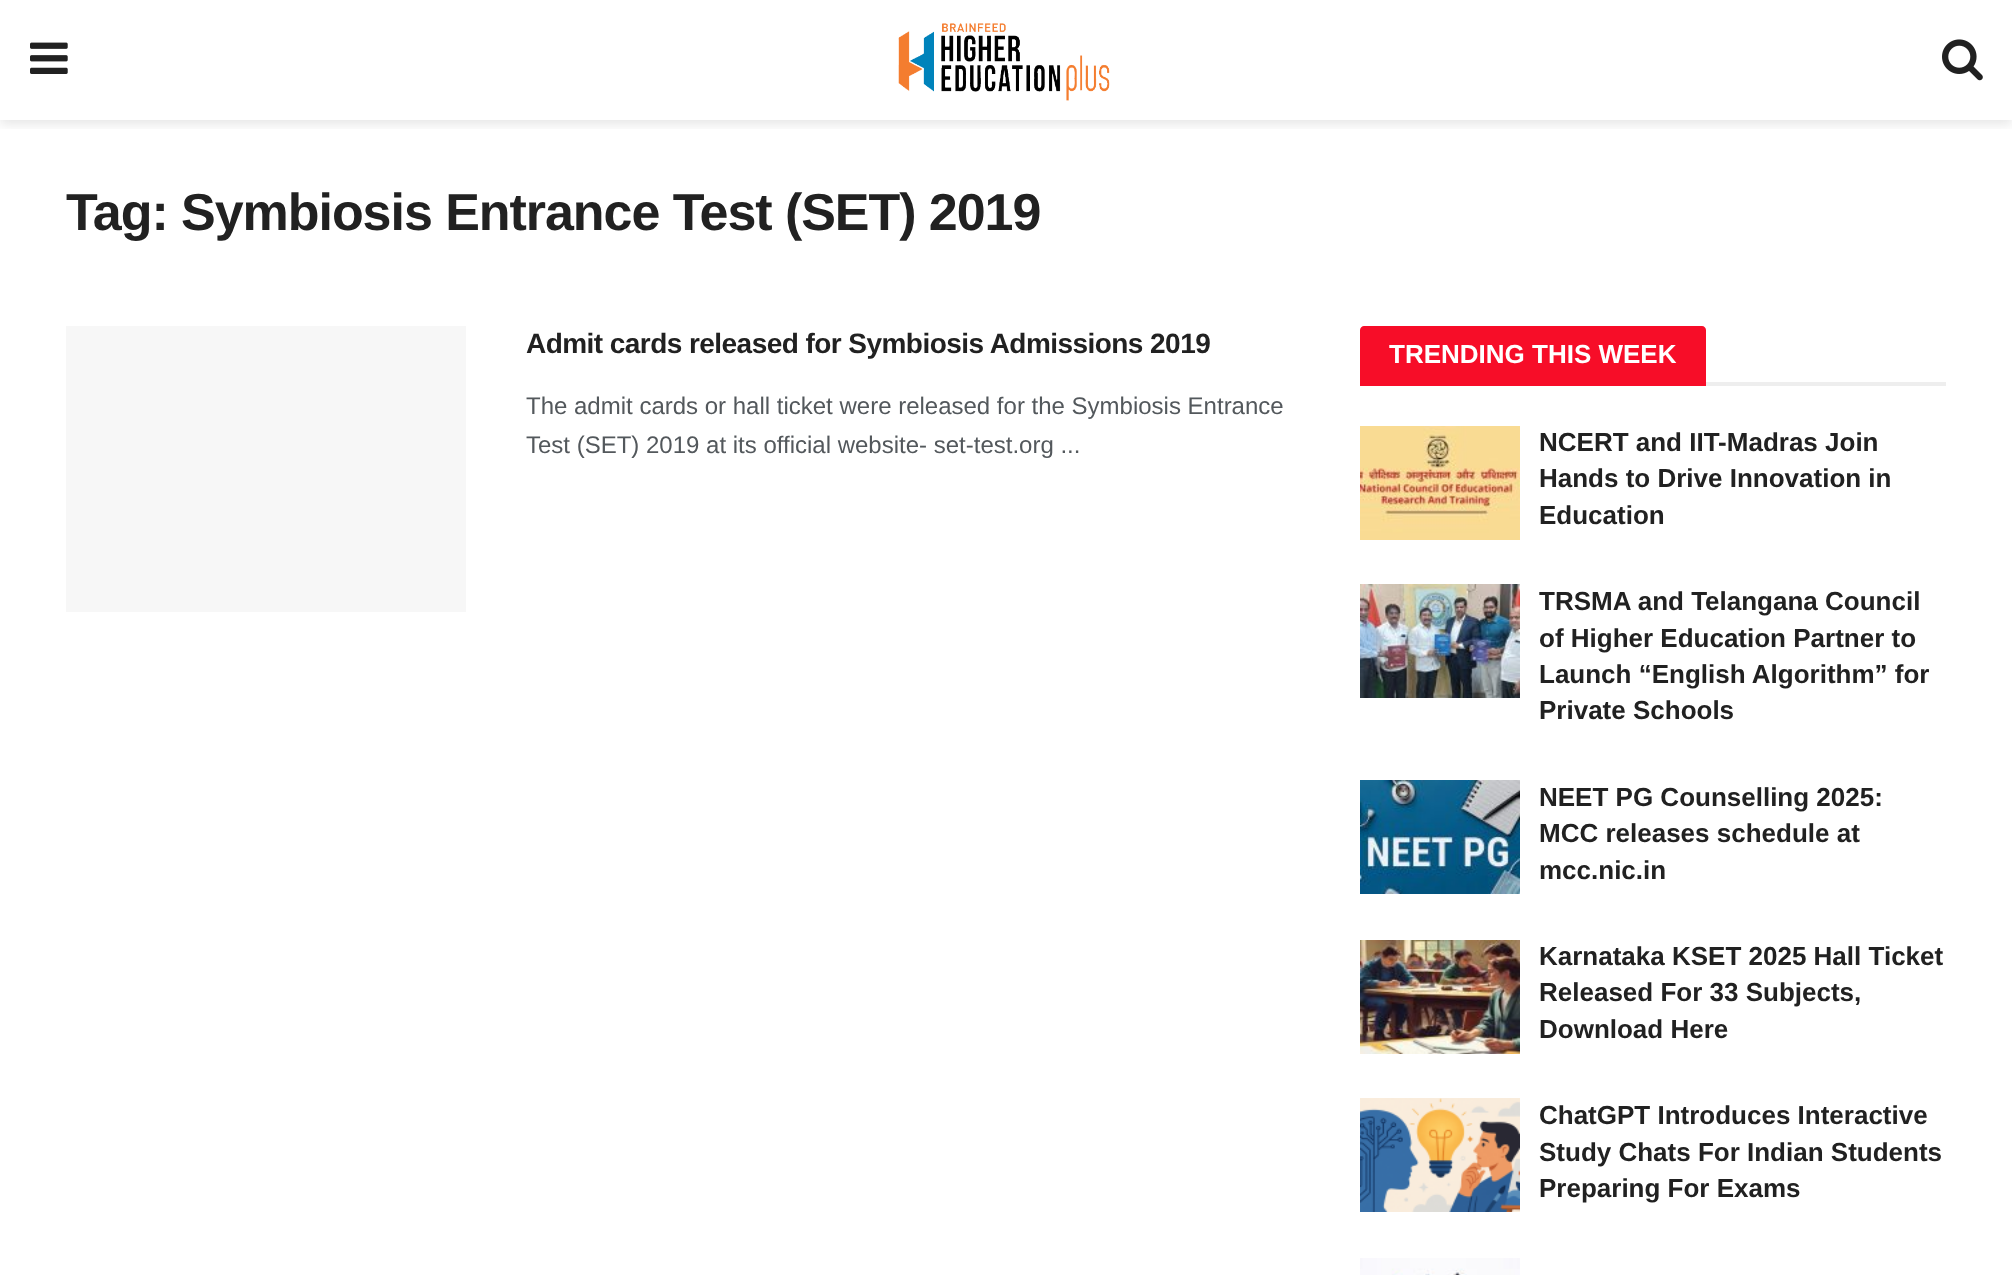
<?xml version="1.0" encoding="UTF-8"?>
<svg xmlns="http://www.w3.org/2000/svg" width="2012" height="1275">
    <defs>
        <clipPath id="clip1"><rect x="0" y="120" width="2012" height="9"/></clipPath>
        <filter id="blur1" x="-50%" y="-200%" width="200%" height="500%"><feGaussianBlur stdDeviation="6"/></filter>
    </defs>
    <rect width="100%" height="100%" fill="#FFFFFF"/>
    <g clip-path="url(#clip1)">
        <rect x="0" y="4" width="2012" height="120" fill="#000000" fill-opacity="0.1" filter="url(#blur1)"/>
    </g>
    <image x="30" y="42" width="38" height="32" href="img_01.png"/>
    <image x="898" y="23" width="212" height="78" href="img_02.png"/>
    <image x="1942" y="39" width="41" height="42" href="img_03.png"/>
    <text x="66" y="230" font-family="Liberation Sans" font-size="52" font-weight="700" letter-spacing="-1.05" fill="#212121">Tag: Symbiosis Entrance Test (SET) 2019</text>
    <rect x="66" y="326" width="400" height="286" fill="#F7F7F7"/>
    <text x="526" y="353" font-family="Liberation Sans" font-size="28" font-weight="700" letter-spacing="-0.55" fill="#212121">Admit cards released for Symbiosis Admissions 2019</text>
    <text font-family="Liberation Sans" font-size="24" fill="#53585C">
        <tspan x="526" y="414">The admit cards or hall ticket were released for the Symbiosis Entrance</tspan>
        <tspan x="526" y="453">Test (SET) 2019 at its official website- set-test.org ...</tspan>
    </text>
    <rect x="1706" y="382" width="240" height="4" fill="#EEEEEE"/>
    <path d="M 1364 326 H 1702 C 1704 326 1706 328 1706 330 V 386 H 1360 V 330 C 1360 328 1362 326 1364 326 Z" fill="#F70D28"/>
    <text x="1389" y="363" font-family="Liberation Sans" font-size="26" font-weight="700" fill="#FFFFFF">TRENDING THIS WEEK</text>
    <image x="1360" y="426" width="160" height="114" href="img_04.png"/>
    <text font-family="Liberation Sans" font-size="26" font-weight="700" fill="#212121">
        <tspan x="1539" y="451">NCERT and IIT-Madras Join</tspan>
        <tspan x="1539" y="487">Hands to Drive Innovation in</tspan>
        <tspan x="1539" y="524">Education</tspan>
    </text>
    <image x="1360" y="584" width="160" height="114" href="img_05.png"/>
    <text font-family="Liberation Sans" font-size="26" font-weight="700" fill="#212121">
        <tspan x="1539" y="610">TRSMA and Telangana Council</tspan>
        <tspan x="1539" y="647">of Higher Education Partner to</tspan>
        <tspan x="1539" y="683">Launch “English Algorithm” for</tspan>
        <tspan x="1539" y="719">Private Schools</tspan>
    </text>
    <image x="1360" y="780" width="160" height="114" href="img_06.png"/>
    <text font-family="Liberation Sans" font-size="26" font-weight="700" fill="#212121">
        <tspan x="1539" y="806">NEET PG Counselling 2025:</tspan>
        <tspan x="1539" y="842">MCC releases schedule at</tspan>
        <tspan x="1539" y="879">mcc.nic.in</tspan>
    </text>
    <image x="1360" y="940" width="160" height="114" href="img_07.png"/>
    <text font-family="Liberation Sans" font-size="26" font-weight="700" fill="#212121">
        <tspan x="1539" y="965">Karnataka KSET 2025 Hall Ticket</tspan>
        <tspan x="1539" y="1001">Released For 33 Subjects,</tspan>
        <tspan x="1539" y="1038">Download Here</tspan>
    </text>
    <image x="1360" y="1098" width="160" height="114" href="img_08.png"/>
    <text font-family="Liberation Sans" font-size="26" font-weight="700" fill="#212121">
        <tspan x="1539" y="1124">ChatGPT Introduces Interactive</tspan>
        <tspan x="1539" y="1161">Study Chats For Indian Students</tspan>
        <tspan x="1539" y="1197">Preparing For Exams</tspan>
    </text>
    <image x="1360" y="1258" width="160" height="17" href="img_09.png"/>
</svg>
